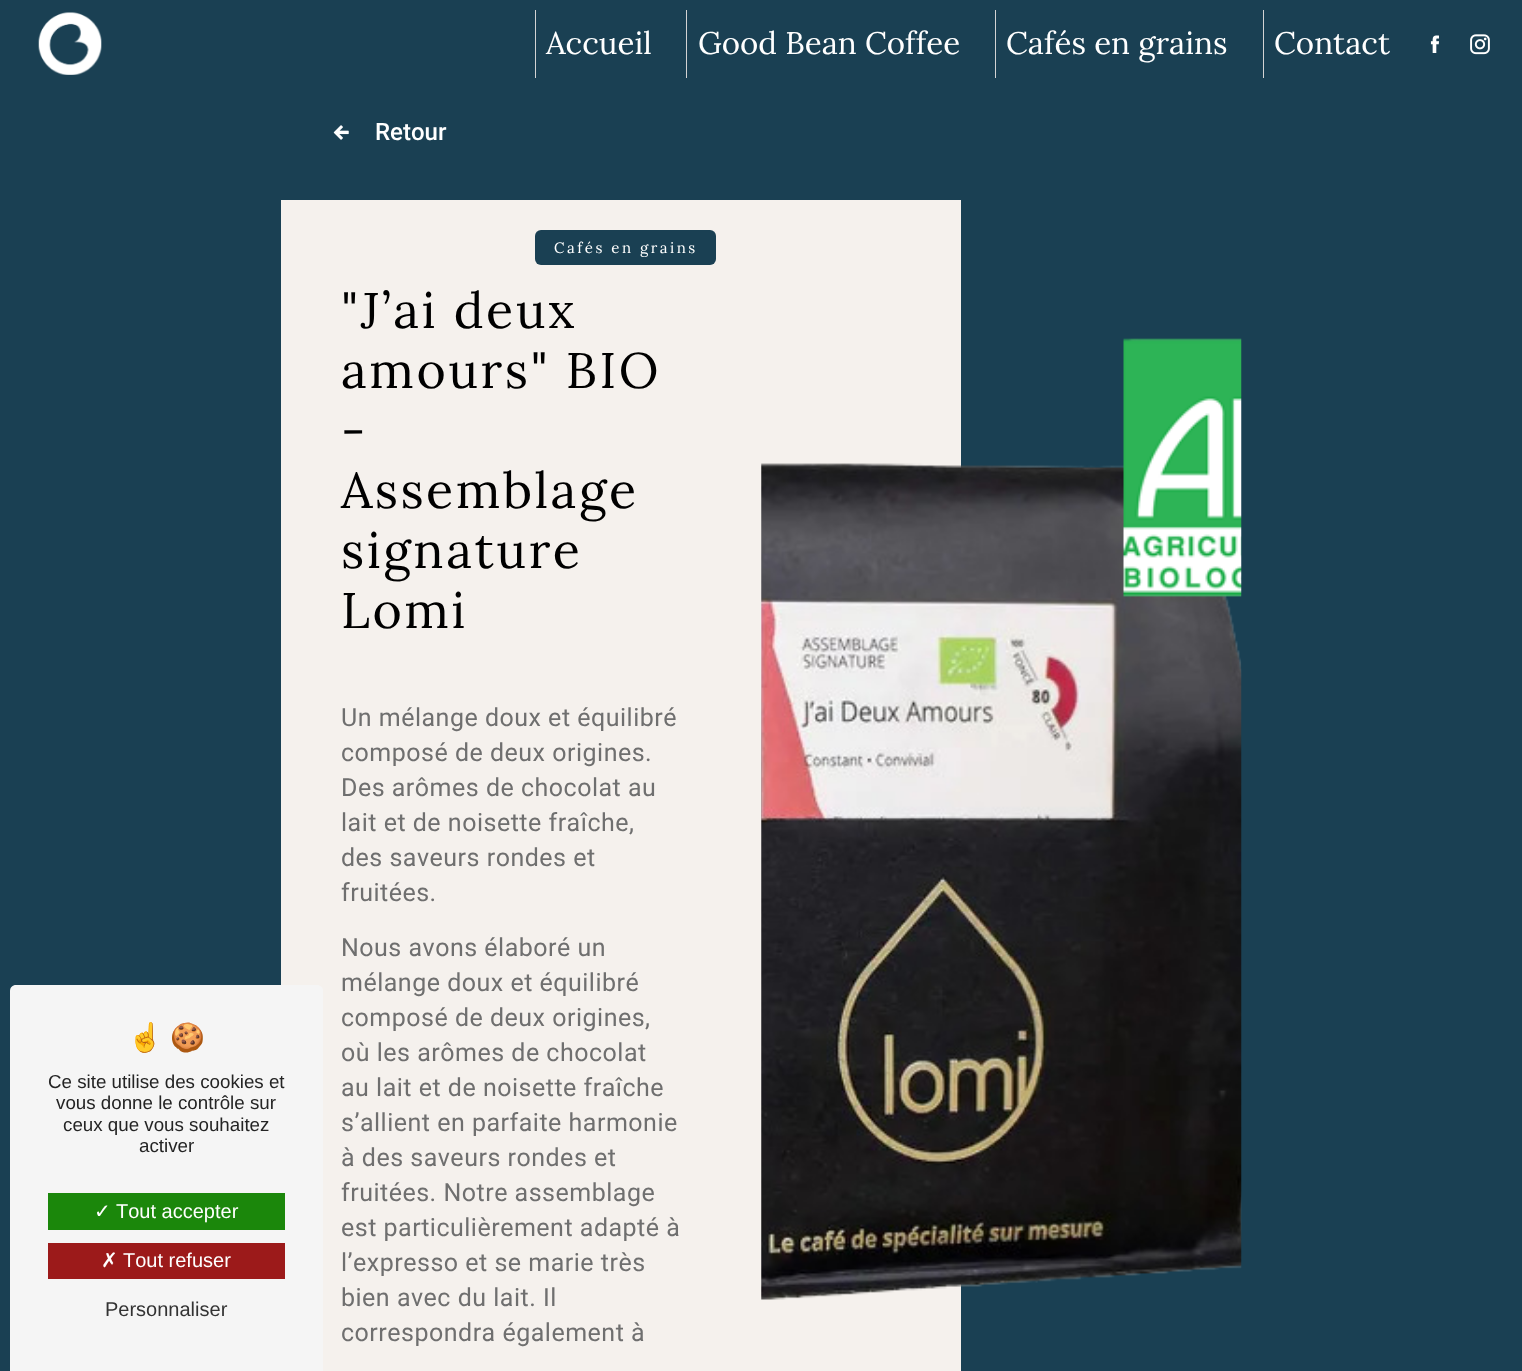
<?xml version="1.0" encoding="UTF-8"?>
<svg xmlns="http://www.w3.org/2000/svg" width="1522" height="1371">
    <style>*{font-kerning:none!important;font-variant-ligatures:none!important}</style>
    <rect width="100%" height="100%" fill="#1A4053"/>
    <rect x="281" y="200" width="680" height="1171" fill="#F5F1ED"/>
    <path d="M 16 985 H 317 C 320.5 985 323 987.5 323 991 V 1371 H 10 V 991 C 10 987.5 12.5 985 16 985 Z" fill="#F5F5F5"/>
    <text x="128" y="1047" font-family="Noto Color Emoji" font-size="28" fill="#242424">☝</text>
    <text x="170" y="1047" font-family="Noto Color Emoji" font-size="28" fill="#242424">🍪</text>
    <text x="48" y="1088" font-family="Liberation Sans" font-size="18.75" fill="#242424">Ce site utilise des cookies et</text>
    <text x="56" y="1109" font-family="Liberation Sans" font-size="18.75" fill="#242424">vous donne le contrôle sur</text>
    <text x="63" y="1131" font-family="Liberation Sans" font-size="18.75" fill="#242424">ceux que vous souhaitez</text>
    <text x="139" y="1152" font-family="Liberation Sans" font-size="18.75" fill="#242424">activer</text>
    <rect x="48" y="1193" width="237" height="37" fill="#1B870B"/>
    <text x="94" y="1218" font-family="DejaVu Sans" font-size="20" fill="#FFFFFF">✓</text>
    <text x="116" y="1218" font-family="Liberation Sans" font-size="20" fill="#FFFFFF">Tout accepter</text>
    <rect x="48" y="1243" width="237" height="36" fill="#9C1A1A"/>
    <text x="101" y="1267" font-family="DejaVu Sans" font-size="20" fill="#FFFFFF">✗</text>
    <text x="123" y="1267" font-family="Liberation Sans" font-size="20" fill="#FFFFFF">Tout refuser</text>
    <text x="105" y="1316" font-family="Liberation Sans" font-size="20" fill="#333333">Personnaliser</text>
    <image x="38" y="12" width="64" height="63" href="img_01.png"/>
    <rect x="535" y="10" width="1" height="68" fill="#D3D3D3"/>
    <text x="546" y="54" font-family="Lora" font-size="31.25" fill="#FFFFFF">Accueil</text>
    <rect x="686" y="10" width="1" height="68" fill="#D3D3D3"/>
    <text x="698" y="54" font-family="Lora" font-size="31.25" fill="#FFFFFF">Good Bean Coffee</text>
    <rect x="995" y="10" width="1" height="68" fill="#D3D3D3"/>
    <text x="1006" y="54" font-family="Lora" font-size="31.25" fill="#FFFFFF">Cafés en grains</text>
    <rect x="1263" y="10" width="1" height="68" fill="#D3D3D3"/>
    <text x="1274" y="54" font-family="Lora" font-size="31.25" fill="#FFFFFF">Contact</text>
    <image x="1430" y="35" width="9" height="18" href="img_02.png"/>
    <image x="1470" y="34" width="20" height="21" href="img_03.png"/>
    <image x="333" y="125" width="16" height="15" href="img_04.png"/>
    <text x="375" y="140" font-family="Roboto" font-size="24" font-weight="500" fill="#FFFFFF">Retour</text>
    <rect x="535" y="230" width="181" height="35" rx="6" fill="#1A4053"/>
    <text x="554" y="253" font-family="Lora" font-size="15" letter-spacing="2.5" fill="#FFFFFF">Cafés en grains</text>
    <text font-family="Lora" font-size="50" letter-spacing="2.5" fill="#000000">
        <tspan x="341" y="328">"J’ai deux</tspan>
        <tspan x="341" y="388">amours" BIO</tspan>
        <tspan x="341" y="448">-</tspan>
        <tspan x="341" y="508">Assemblage</tspan>
        <tspan x="341" y="568">signature</tspan>
        <tspan x="341" y="628">Lomi</tspan>
    </text>
    <text font-family="Roboto" font-size="25" letter-spacing="0.5" fill="#6F6F6F">
        <tspan x="341" y="726">Un mélange doux et équilibré</tspan>
        <tspan x="341" y="761">composé de deux origines.</tspan>
        <tspan x="341" y="796">Des arômes de chocolat au</tspan>
        <tspan x="341" y="831">lait et de noisette fraîche,</tspan>
        <tspan x="341" y="866">des saveurs rondes et</tspan>
        <tspan x="341" y="901">fruitées.</tspan>
    </text>
    <text font-family="Roboto" font-size="25" letter-spacing="0.5" fill="#6F6F6F">
        <tspan x="341" y="956">Nous avons élaboré un</tspan>
        <tspan x="341" y="991">mélange doux et équilibré</tspan>
        <tspan x="341" y="1026">composé de deux origines,</tspan>
        <tspan x="341" y="1061">où les arômes de chocolat</tspan>
        <tspan x="341" y="1096">au lait et de noisette fraîche</tspan>
        <tspan x="341" y="1131">s’allient en parfaite harmonie</tspan>
        <tspan x="341" y="1166">à des saveurs rondes et</tspan>
        <tspan x="341" y="1201">fruitées. Notre assemblage</tspan>
        <tspan x="341" y="1236">est particulièrement adapté à</tspan>
        <tspan x="341" y="1271">l’expresso et se marie très</tspan>
        <tspan x="341" y="1306">bien avec du lait. Il</tspan>
        <tspan x="341" y="1341">correspondra également à</tspan>
    </text>
    <image x="761" y="338" width="481" height="962" href="img_05.png"/>
</svg>
